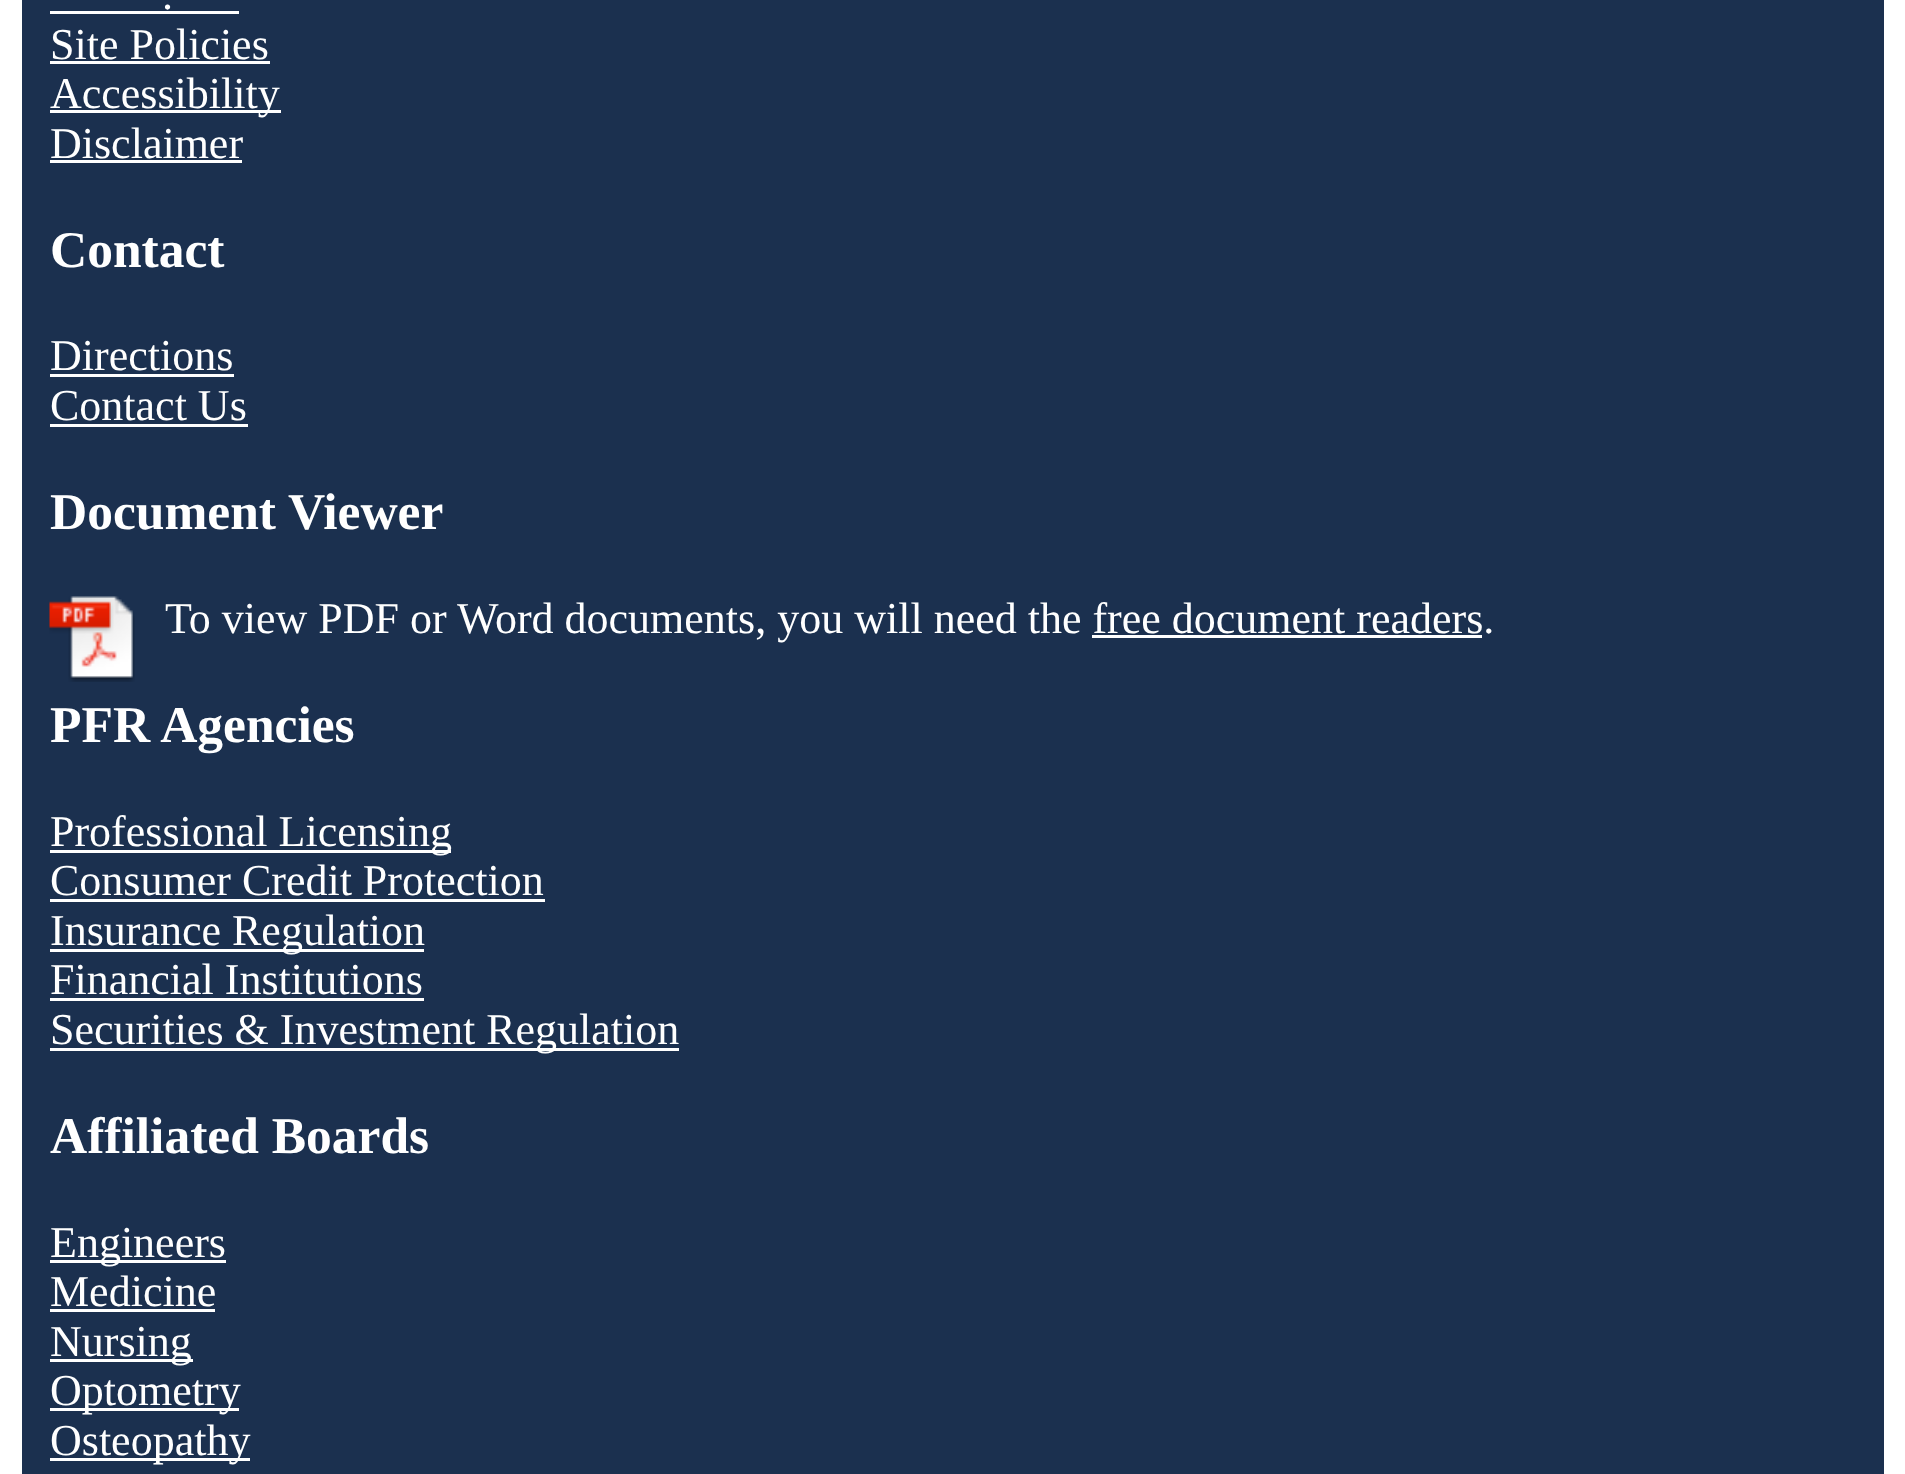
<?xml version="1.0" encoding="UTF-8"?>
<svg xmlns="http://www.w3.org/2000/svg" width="1905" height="1474">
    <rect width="100%" height="100%" fill="#FFFFFF"/>
    <rect x="22" y="0" width="1862" height="1474" fill="#1B304F"/>
    <text x="162" y="9" font-family="Liberation Serif" font-size="44" fill="#FFFFFF">.</text>
    <rect x="50" y="11" width="189" height="3" fill="#FFFFFF"/>
    <text x="50" y="59" font-family="Liberation Serif" font-size="44" fill="#FFFFFF">Site Policies</text>
    <rect x="50" y="61" width="220" height="3" fill="#FFFFFF"/>
    <rect x="50" y="110" width="231" height="3" fill="#FFFFFF"/>
    <text font-family="Liberation Serif" font-size="44" fill="#FFFFFF">
        <tspan x="50" y="108">Accessibility</tspan>
        <tspan x="50" y="158">Disclaimer</tspan>
    </text>
    <rect x="50" y="160" width="192" height="3" fill="#FFFFFF"/>
    <text x="50" y="267" font-family="Liberation Serif" font-size="51.5" font-weight="700" fill="#FFFFFF">Contact</text>
    <text x="50" y="370" font-family="Liberation Serif" font-size="44" fill="#FFFFFF">Directions</text>
    <rect x="50" y="374" width="184" height="3" fill="#FFFFFF"/>
    <text x="50" y="420" font-family="Liberation Serif" font-size="44" fill="#FFFFFF">Contact Us</text>
    <rect x="50" y="424" width="198" height="3" fill="#FFFFFF"/>
    <text x="50" y="529" font-family="Liberation Serif" font-size="51.5" font-weight="700" fill="#FFFFFF">Document Viewer</text>
    <image x="49" y="596" width="86" height="86" href="img_01.png"/>
    <text x="165" y="633" font-family="Liberation Serif" font-size="44" fill="#FFFFFF">To view PDF or Word documents, you will need the free document readers.</text>
    <rect x="1092" y="635" width="390" height="3" fill="#FFFFFF"/>
    <text x="50" y="742" font-family="Liberation Serif" font-size="51.5" font-weight="700" fill="#FFFFFF">PFR Agencies</text>
    <rect x="50" y="850" width="401" height="3" fill="#FFFFFF"/>
    <text font-family="Liberation Serif" font-size="44" fill="#FFFFFF">
        <tspan x="50" y="846">Professional Licensing</tspan>
        <tspan x="50" y="895">Consumer Credit Protection</tspan>
    </text>
    <rect x="50" y="899" width="495" height="3" fill="#FFFFFF"/>
    <rect x="50" y="949" width="374" height="3" fill="#FFFFFF"/>
    <text font-family="Liberation Serif" font-size="44" fill="#FFFFFF">
        <tspan x="50" y="945">Insurance Regulation</tspan>
        <tspan x="50" y="994">Financial Institutions</tspan>
    </text>
    <rect x="50" y="998" width="374" height="3" fill="#FFFFFF"/>
    <rect x="50" y="1048" width="629" height="3" fill="#FFFFFF"/>
    <text x="50" y="1044" font-family="Liberation Serif" font-size="44" fill="#FFFFFF">Securities &amp; Investment Regulation</text>
    <text x="50" y="1153" font-family="Liberation Serif" font-size="51.5" font-weight="700" fill="#FFFFFF">Affiliated Boards</text>
    <rect x="50" y="1260" width="176" height="3" fill="#FFFFFF"/>
    <text font-family="Liberation Serif" font-size="44" fill="#FFFFFF">
        <tspan x="50" y="1257">Engineers</tspan>
        <tspan x="50" y="1306">Medicine</tspan>
    </text>
    <rect x="50" y="1309" width="165" height="3" fill="#FFFFFF"/>
    <rect x="50" y="1359" width="143" height="3" fill="#FFFFFF"/>
    <text x="50" y="1356" font-family="Liberation Serif" font-size="44" fill="#FFFFFF">Nursing</text>
    <rect x="50" y="1408" width="189" height="3" fill="#FFFFFF"/>
    <text x="50" y="1405" font-family="Liberation Serif" font-size="44" fill="#FFFFFF">Optometry</text>
    <rect x="50" y="1458" width="200" height="3" fill="#FFFFFF"/>
    <text x="50" y="1455" font-family="Liberation Serif" font-size="44" fill="#FFFFFF">Osteopathy</text>
</svg>
